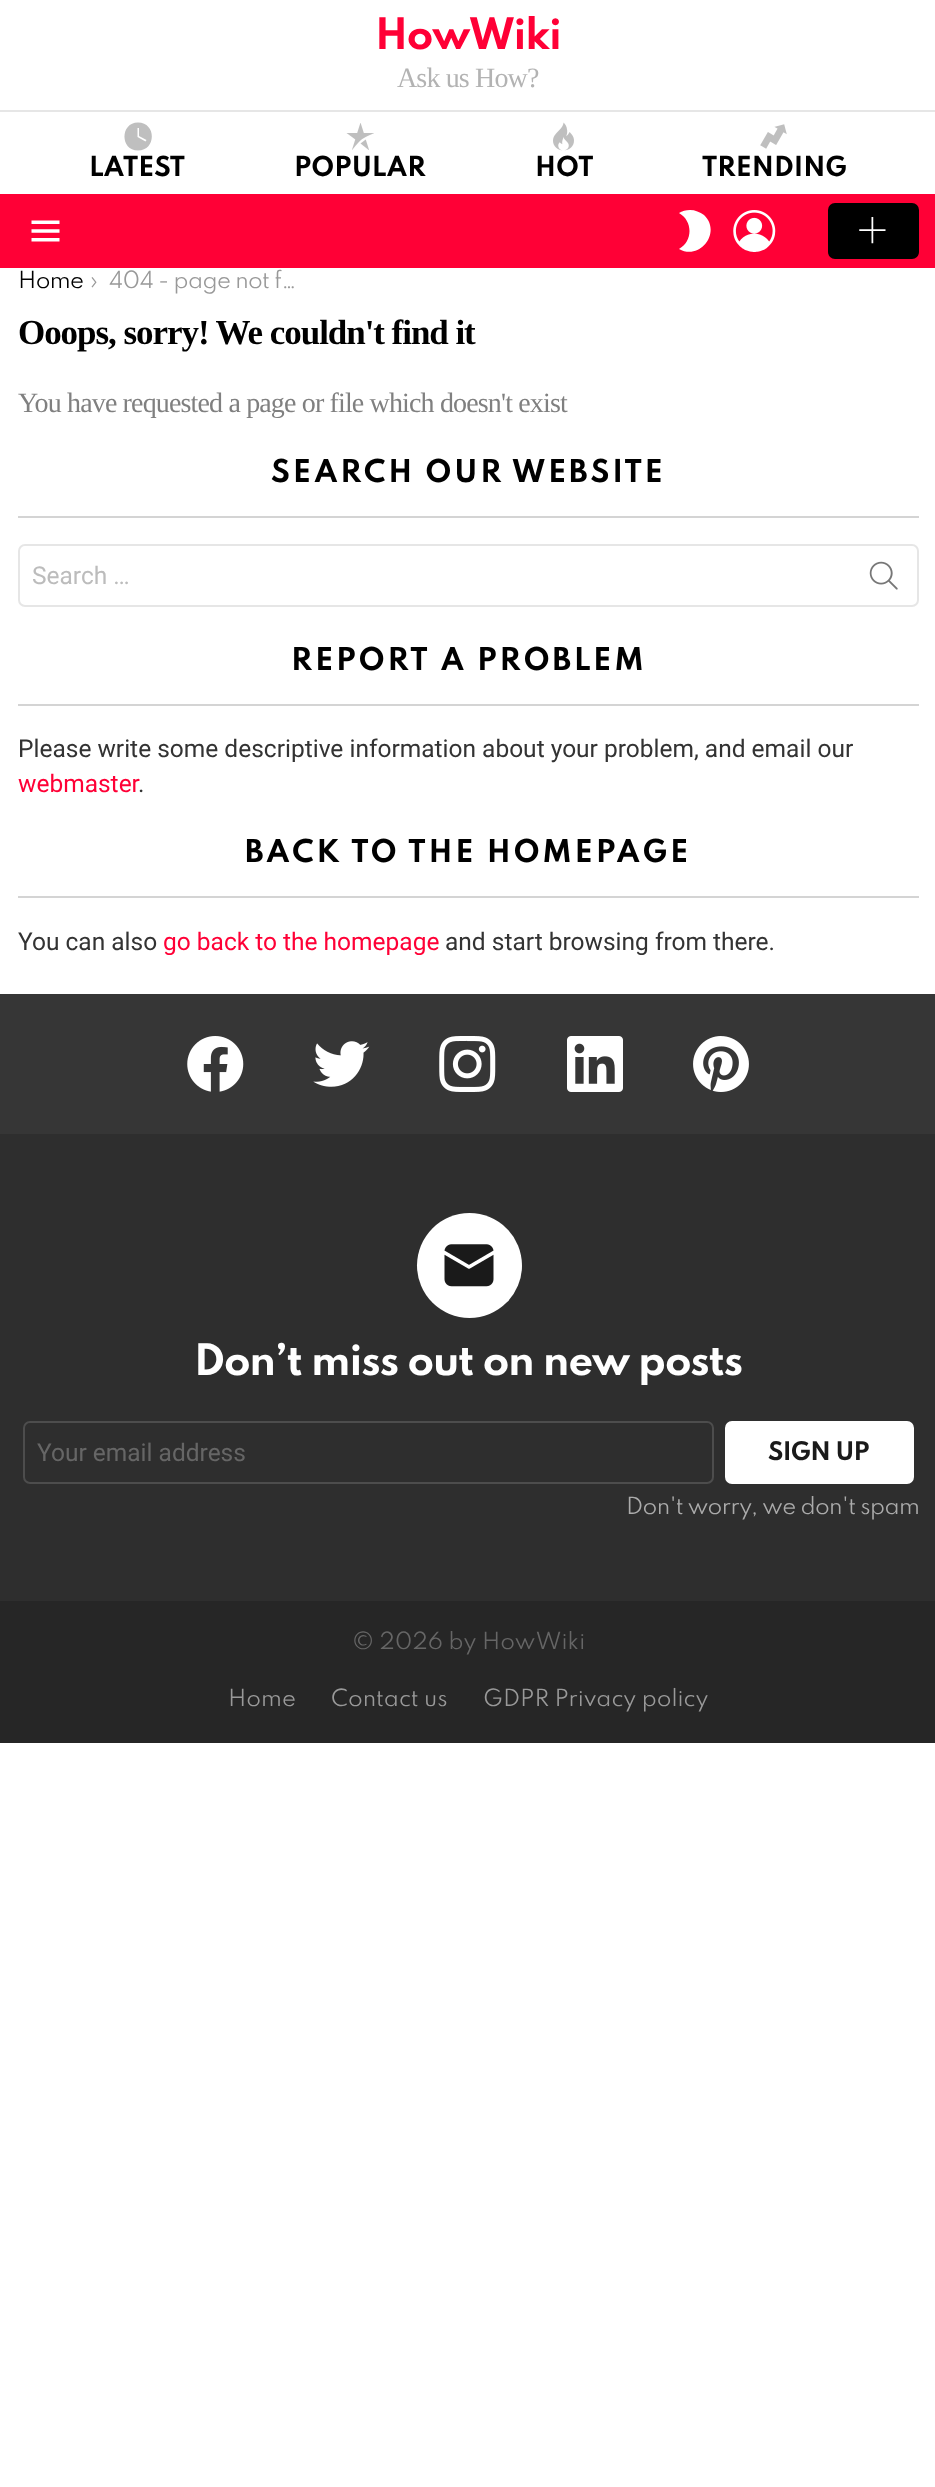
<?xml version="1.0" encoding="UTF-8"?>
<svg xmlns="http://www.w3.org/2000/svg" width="935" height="2487">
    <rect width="100%" height="100%" fill="#FFFFFF"/>
    <text x="375" y="49" font-family="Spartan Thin" font-size="38.5" font-weight="700" letter-spacing="-1.15" fill="#FF0036">HowWiki</text>
    <text x="397" y="87" font-family="Liberation Serif" font-size="28" letter-spacing="-0.85" fill="#B3B3B3">Ask us How?</text>
    <rect x="0" y="110" width="935" height="2" fill="#E6E6E6"/>
    <path d="M 138 122.5 C 120 122.5 120 150.5 138 150.5 C 156.5 150.5 156.5 122.5 138 122.5 Z M 145.5 141.5 L 137.5 137 V 128 H 139 V 136 L 146.5 140 Z" fill="#BFBFBF"/>
    <text x="89" y="176" font-family="Spartan Thin" font-size="24.5" font-weight="700" fill="#000000">LATEST</text>
    <image x="346" y="123" width="28" height="27" href="img_01.png"/>
    <text x="294" y="176" font-family="Spartan Thin" font-size="24.5" font-weight="700" fill="#000000">POPULAR</text>
    <image x="553" y="122" width="21" height="29" href="img_02.png"/>
    <text x="535" y="176" font-family="Spartan Thin" font-size="24.5" font-weight="700" fill="#000000">HOT</text>
    <image x="760" y="124" width="27" height="25" href="img_03.png"/>
    <text x="702" y="176" font-family="Spartan Thin" font-size="24.5" font-weight="700" fill="#000000">TRENDING</text>
    <rect x="0" y="194" width="935" height="74" fill="#FF0036"/>
    <image x="31" y="220" width="29" height="22" href="img_04.png"/>
    <path d="M 690 210 C 686 210 682 211 679 213 C 693 221 693 241 679 249 C 700 261 722 232 704 215 C 700 212 695 210 690 210 Z" fill="#FFFFFF"/>
    <image x="733" y="210" width="43" height="42" href="img_05.png"/>
    <rect x="828" y="203" width="91" height="56" rx="7" fill="#000000"/>
    <image x="859" y="217" width="27" height="27" href="img_06.png"/>
    <text x="18" y="288" font-family="Spartan Thin" font-size="21" letter-spacing="-0.6" fill="#000000">Home</text>
    <text x="90" y="288" font-family="Spartan Thin" font-size="21" letter-spacing="-0.6" fill="#999999">›</text>
    <text x="109" y="288" font-family="Spartan Thin" font-size="21" letter-spacing="-0.6" fill="#999999">404 - page not f…</text>
    <text x="18" y="344" font-family="Liberation Serif" font-size="35" font-weight="700" letter-spacing="-1.05" fill="#000000">Ooops, sorry! We couldn't find it</text>
    <text x="18" y="412" font-family="Liberation Serif" font-size="28" letter-spacing="-0.85" fill="#808080">You have requested a page or file which doesn't exist</text>
    <text x="271" y="482" font-family="Spartan Thin" font-size="28" font-weight="700" letter-spacing="2.75" fill="#000000">SEARCH OUR WEBSITE</text>
    <rect x="18" y="516" width="901" height="2" fill="#D4D4D4"/>
    <rect x="19" y="545" width="899" height="61" rx="6" fill="none" stroke="#E6E6E6" stroke-width="2"/>
    <text x="32" y="584" font-family="Roboto" font-size="24.5" fill="#BCBCBC">Search …</text>
    <image x="869" y="561" width="29" height="29" href="img_07.png"/>
    <text x="291" y="670" font-family="Spartan Thin" font-size="28" font-weight="700" letter-spacing="2.75" fill="#000000">REPORT A PROBLEM</text>
    <rect x="18" y="704" width="901" height="2" fill="#D4D4D4"/>
    <text x="18" y="757" font-family="Roboto" font-size="24.5" fill="#333333">Please write some descriptive information about your problem, and email our</text>
    <text x="18" y="792" font-family="Roboto" font-size="24.5" fill="#FF0036">webmaster</text>
    <text x="138" y="792" font-family="Roboto" font-size="24.5" fill="#333333">.</text>
    <text x="245" y="862" font-family="Spartan Thin" font-size="28" font-weight="700" letter-spacing="2.75" fill="#000000">BACK TO THE HOMEPAGE</text>
    <rect x="18" y="896" width="901" height="2" fill="#D4D4D4"/>
    <text x="18" y="950" font-family="Roboto" font-size="24.5" fill="#333333">You can also</text>
    <text x="163" y="950" font-family="Roboto" font-size="24.5" fill="#FF0036">go back to the homepage</text>
    <text x="445" y="950" font-family="Roboto" font-size="24.5" fill="#333333">and start browsing from there.</text>
    <rect x="0" y="994" width="935" height="140" fill="#363636"/>
    <image x="187" y="1036" width="57" height="56" href="img_08.png"/>
    <image x="313" y="1041" width="57" height="46" href="img_09.png"/>
    <image x="439" y="1036" width="57" height="56" href="img_10.png"/>
    <image x="567" y="1036" width="56" height="56" href="img_11.png"/>
    <image x="693" y="1036" width="56" height="56" href="img_12.png"/>
    <rect x="0" y="1134" width="935" height="467" fill="#2E2E2E"/>
    <circle cx="469.5" cy="1265.5" r="52.5" fill="#FFFFFF"/>
    <image x="444" y="1244" width="50" height="43" href="img_13.png"/>
    <text x="194" y="1375" font-family="Spartan Thin" font-size="38.5" font-weight="700" letter-spacing="-1.15" fill="#FFFFFF">Don’t miss out on new posts</text>
    <rect x="24" y="1422" width="689" height="61" rx="6" fill="none" stroke="#4D4D4D" stroke-width="2"/>
    <text x="37" y="1461" font-family="Roboto" font-size="24.5" fill="#666666">Your email address</text>
    <rect x="727" y="1423" width="185" height="59" rx="5" fill="#FFFFFF" stroke="#FFFFFF" stroke-width="4"/>
    <text x="768" y="1460" font-family="Spartan Thin" font-size="22.75" font-weight="700" letter-spacing="-0.75" fill="#1A1A1A">SIGN UP</text>
    <text x="626" y="1514" font-family="Spartan Thin" font-size="21" letter-spacing="-0.6" fill="#ABABAB">Don't worry, we don't spam</text>
    <rect x="0" y="1601" width="935" height="142" fill="#262626"/>
    <text x="352" y="1649" font-family="Spartan Thin" font-size="21" fill="#666666">© 2026 by HowWiki</text>
    <text x="228" y="1706" font-family="Spartan Thin" font-size="21" fill="#999999">Home</text>
    <text x="331" y="1706" font-family="Spartan Thin" font-size="21" fill="#999999">Contact us</text>
    <text x="483" y="1706" font-family="Spartan Thin" font-size="21" fill="#999999">GDPR Privacy policy</text>
</svg>
